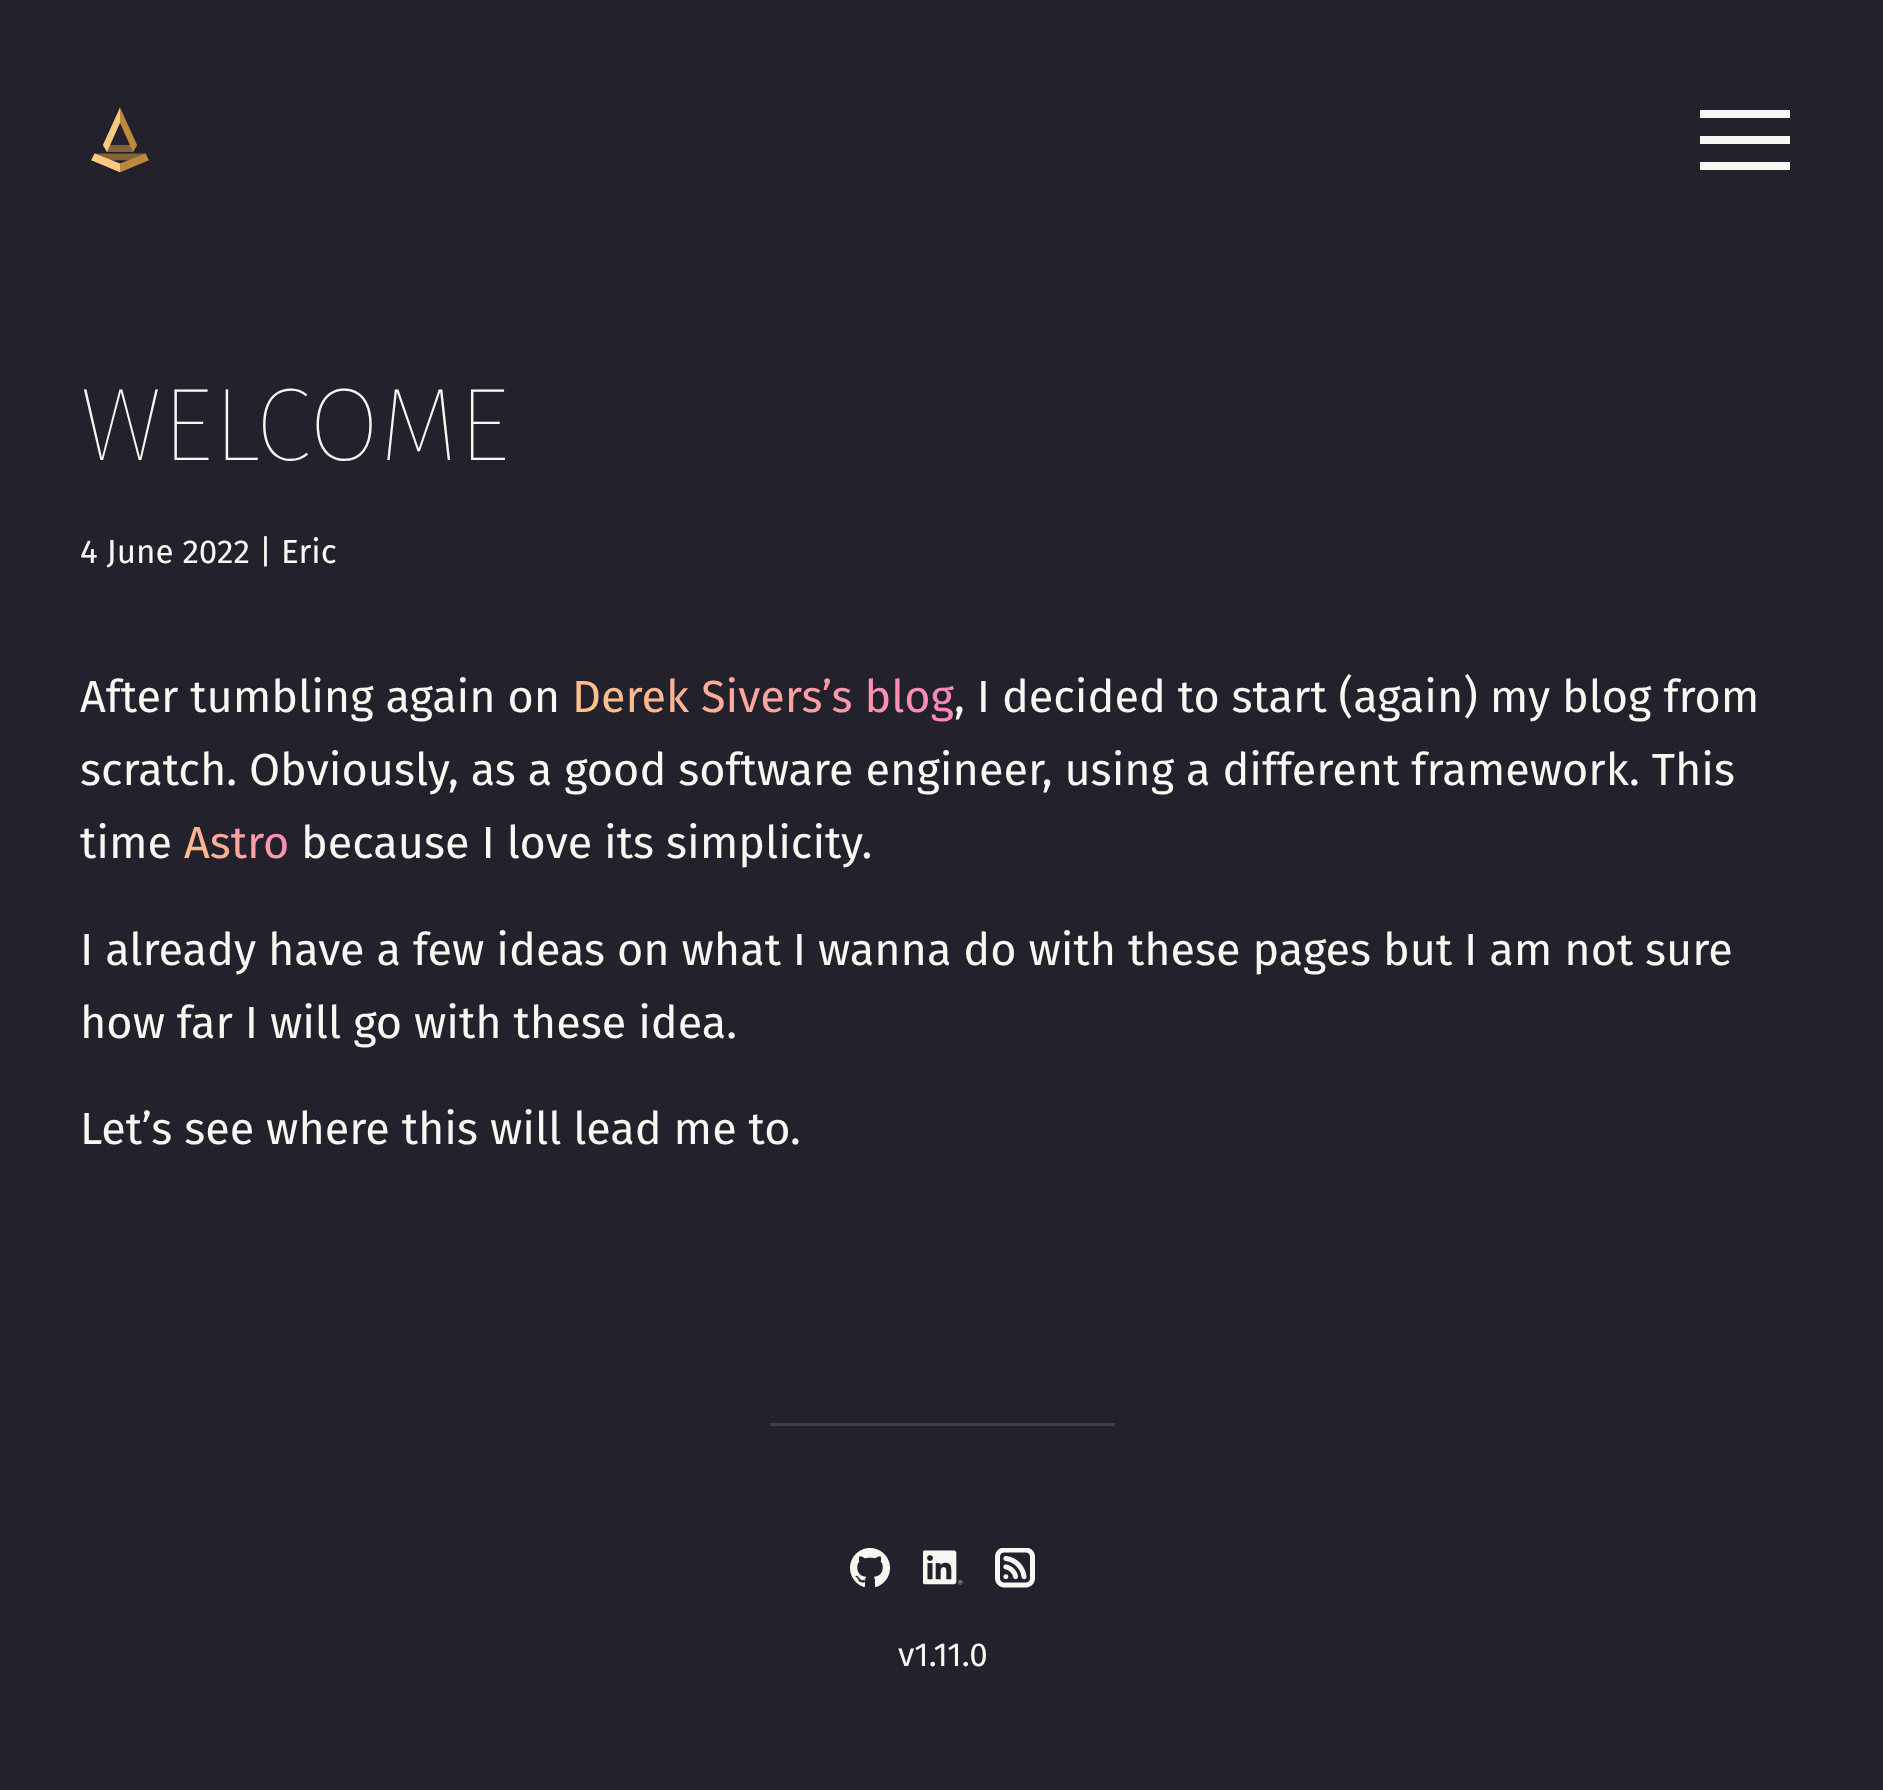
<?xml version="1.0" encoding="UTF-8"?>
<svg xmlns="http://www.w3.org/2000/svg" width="1883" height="1790">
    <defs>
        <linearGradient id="g1" gradientUnits="userSpaceOnUse" x1="654" y1="806" x2="872" y2="588"><stop offset="0" stop-color="#FFCA80"/><stop offset="1" stop-color="#FF80BF"/></linearGradient>
        <linearGradient id="g2" gradientUnits="userSpaceOnUse" x1="197" y1="883" x2="277" y2="803"><stop offset="0" stop-color="#FFCA80"/><stop offset="1" stop-color="#FF80BF"/></linearGradient>
    </defs>
    <rect width="100%" height="100%" fill="#22212C"/>
    <image x="91" y="107" width="58" height="66" href="img_01.png"/>
    <path d="M 1700 170 V 162 H 1790 V 170 Z M 1700 144 V 136 H 1790 V 144 Z M 1700 118 V 110 H 1790 V 118 Z" fill="#F8F8F2"/>
    <text x="80" y="460" font-family="Fira Sans" font-size="103.5" font-weight="200" fill="#F8F8F2">WELCOME</text>
    <text x="80" y="563" font-family="Fira Sans" font-size="33.25" fill="#F8F8F2">4 June 2022 | Eric</text>
    <text x="80" y="712" font-family="Fira Sans" font-size="45" fill="#F8F8F2">After tumbling again on</text>
    <text x="572" y="712" font-family="Fira Sans" font-size="45" fill="url(#g1)">Derek Sivers’s blog</text>
    <text x="954" y="712" font-family="Fira Sans" font-size="45" fill="#F8F8F2">, I decided to start (again) my blog from</text>
    <text font-family="Fira Sans" font-size="45" fill="#F8F8F2">
        <tspan x="80" y="785">scratch. Obviously, as a good software engineer, using a different framework. This</tspan>
        <tspan x="80" y="858">time</tspan>
    </text>
    <text x="184" y="858" font-family="Fira Sans" font-size="45" fill="url(#g2)">Astro</text>
    <text x="301" y="858" font-family="Fira Sans" font-size="45" fill="#F8F8F2">because I love its simplicity.</text>
    <text font-family="Fira Sans" font-size="45" fill="#F8F8F2">
        <tspan x="80" y="965">I already have a few ideas on what I wanna do with these pages but I am not sure</tspan>
        <tspan x="80" y="1038">how far I will go with these idea.</tspan>
    </text>
    <text x="80" y="1144" font-family="Fira Sans" font-size="45" fill="#F8F8F2">Let’s see where this will lead me to.</text>
    <rect x="770" y="1423" width="345" height="3" fill="#374151"/>
    <image x="850" y="1548" width="40" height="39" href="img_02.png"/>
    <image x="923" y="1550" width="40" height="35" href="img_03.png"/>
    <image x="995" y="1548" width="40" height="40" href="img_04.png"/>
    <text x="898" y="1666" font-family="Fira Sans" font-size="33.25" fill="#F8F8F2">v1.11.0</text>
</svg>
